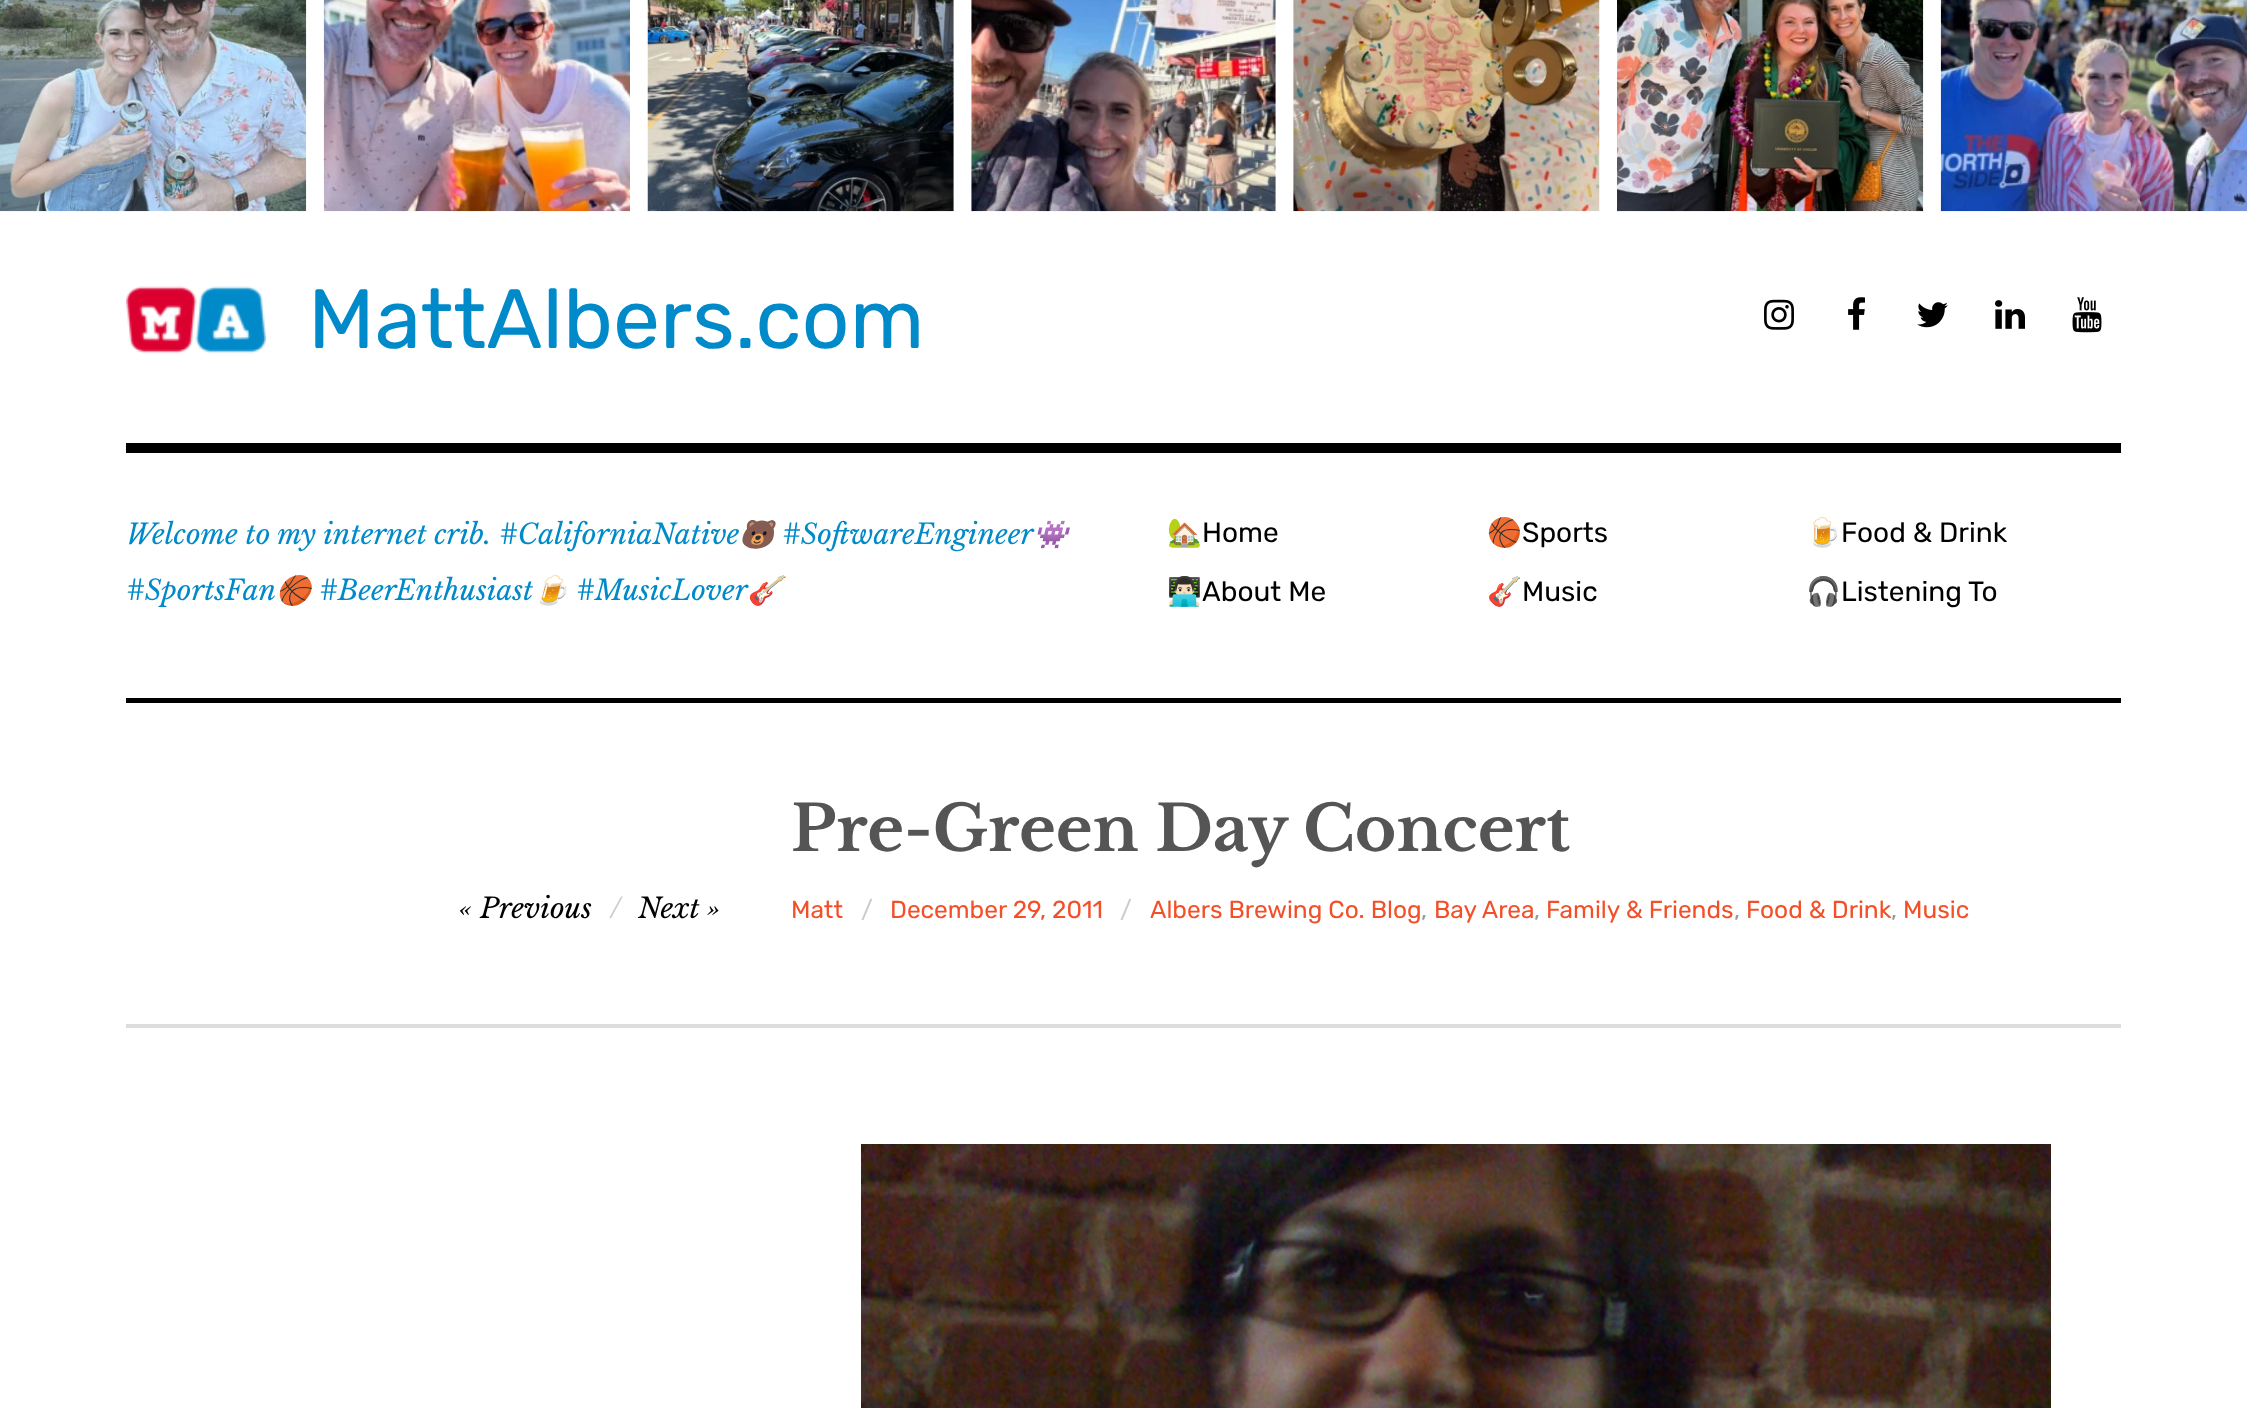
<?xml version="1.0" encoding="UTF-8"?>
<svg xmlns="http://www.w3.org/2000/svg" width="2247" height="1408">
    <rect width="100%" height="100%" fill="#FFFFFF"/>
    <image x="0" y="0" width="307" height="212" href="img_01.png"/>
    <image x="323" y="0" width="307" height="212" href="img_02.png"/>
    <image x="647" y="0" width="307" height="212" href="img_03.png"/>
    <image x="971" y="0" width="305" height="212" href="img_04.png"/>
    <image x="1293" y="0" width="307" height="212" href="img_05.png"/>
    <image x="1617" y="0" width="307" height="212" href="img_06.png"/>
    <image x="1940" y="0" width="307" height="212" href="img_07.png"/>
    <rect x="126" y="443" width="1995" height="10" fill="#000000"/>
    <image x="126" y="286" width="140" height="68" href="img_08.png"/>
    <text x="308" y="348" font-family="Rubik" font-size="84" fill="#008AC9">MattAlbers.com</text>
    <image x="1764" y="299" width="30" height="31" href="img_09.png"/>
    <image x="1848" y="297" width="17" height="33" href="img_10.png"/>
    <image x="1917" y="302" width="31" height="26" href="img_11.png"/>
    <image x="1995" y="300" width="30" height="29" href="img_12.png"/>
    <image x="2072" y="297" width="30" height="36" href="img_13.png"/>
    <text x="126" y="544" font-family="Libre Baskerville" font-size="28" font-style="italic" fill="#008AC9">Welcome to my internet crib. #CaliforniaNative</text>
    <text x="739" y="544" font-family="Noto Color Emoji" font-size="28" font-style="italic" fill="#008AC9">🐻</text>
    <text x="782" y="544" font-family="Libre Baskerville" font-size="28" font-style="italic" fill="#008AC9">#SoftwareEngineer</text>
    <text x="1033" y="544" font-family="Noto Color Emoji" font-size="28" font-style="italic" fill="#008AC9">👾</text>
    <text x="126" y="600" font-family="Libre Baskerville" font-size="28" font-style="italic" fill="#008AC9">#SportsFan</text>
    <text x="276" y="600" font-family="Noto Color Emoji" font-size="28" font-style="italic" fill="#008AC9">🏀</text>
    <text x="319" y="600" font-family="Libre Baskerville" font-size="28" font-style="italic" fill="#008AC9">#BeerEnthusiast</text>
    <text x="533" y="600" font-family="Noto Color Emoji" font-size="28" font-style="italic" fill="#008AC9">🍺</text>
    <text x="576" y="600" font-family="Libre Baskerville" font-size="28" font-style="italic" fill="#008AC9">#MusicLover</text>
    <text x="747" y="600" font-family="Noto Color Emoji" font-size="28" font-style="italic" fill="#008AC9">🎸</text>
    <text x="1167" y="542" font-family="Noto Color Emoji" font-size="28" fill="#000000">🏡</text>
    <text x="1202" y="542" font-family="Rubik" font-size="28" fill="#000000">Home</text>
    <text x="1167" y="601" font-family="Noto Color Emoji" font-size="28" fill="#000000">👨🏻‍💻</text>
    <text x="1202" y="601" font-family="Rubik" font-size="28" fill="#000000">About Me</text>
    <text x="1487" y="542" font-family="Noto Color Emoji" font-size="28" fill="#000000">🏀</text>
    <text x="1522" y="542" font-family="Rubik" font-size="28" fill="#000000">Sports</text>
    <text x="1487" y="601" font-family="Noto Color Emoji" font-size="28" fill="#000000">🎸</text>
    <text x="1522" y="601" font-family="Rubik" font-size="28" fill="#000000">Music</text>
    <text x="1806" y="542" font-family="Noto Color Emoji" font-size="28" fill="#000000">🍺</text>
    <text x="1841" y="542" font-family="Rubik" font-size="28" fill="#000000">Food &amp; Drink</text>
    <text x="1806" y="601" font-family="Noto Color Emoji" font-size="28" fill="#000000">🎧</text>
    <text x="1841" y="601" font-family="Rubik" font-size="28" fill="#000000">Listening To</text>
    <rect x="126" y="698" width="1995" height="5" fill="#000000"/>
    <text x="791" y="851" font-family="Libre Baskerville" font-size="63" font-weight="700" fill="#555555">Pre-Green Day Concert</text>
    <text x="459" y="918" font-family="Libre Baskerville" font-size="28" font-style="italic" fill="#000000">« Previous</text>
    <text x="610" y="918" font-family="Libre Baskerville" font-size="28" font-style="italic" fill="#CCCCCC">/</text>
    <text x="638" y="918" font-family="Libre Baskerville" font-size="28" font-style="italic" fill="#000000">Next »</text>
    <text x="791" y="918" font-family="Rubik" font-size="24.5" fill="#F35029">Matt</text>
    <text x="861" y="918" font-family="Rubik" font-size="24.5" fill="#CCCCCC">/</text>
    <text x="890" y="918" font-family="Rubik" font-size="24.5" fill="#F35029">December 29, 2011</text>
    <text x="1120" y="918" font-family="Rubik" font-size="24.5" fill="#CCCCCC">/</text>
    <text x="1150" y="918" font-family="Rubik" font-size="24.5" fill="#F35029">Albers Brewing Co. Blog</text>
    <text x="1421" y="918" font-family="Rubik" font-size="24.5" fill="#999999">,</text>
    <text x="1434" y="918" font-family="Rubik" font-size="24.5" fill="#F35029">Bay Area</text>
    <text x="1534" y="918" font-family="Rubik" font-size="24.5" fill="#999999">,</text>
    <text x="1546" y="918" font-family="Rubik" font-size="24.5" fill="#F35029">Family &amp; Friends</text>
    <text x="1734" y="918" font-family="Rubik" font-size="24.5" fill="#999999">,</text>
    <text x="1746" y="918" font-family="Rubik" font-size="24.5" fill="#F35029">Food &amp; Drink</text>
    <text x="1891" y="918" font-family="Rubik" font-size="24.5" fill="#999999">,</text>
    <text x="1903" y="918" font-family="Rubik" font-size="24.5" fill="#F35029">Music</text>
    <rect x="126" y="1024" width="1995" height="4" fill="#DDDDDD"/>
    <image x="861" y="1144" width="1190" height="264" href="img_14.png"/>
</svg>
